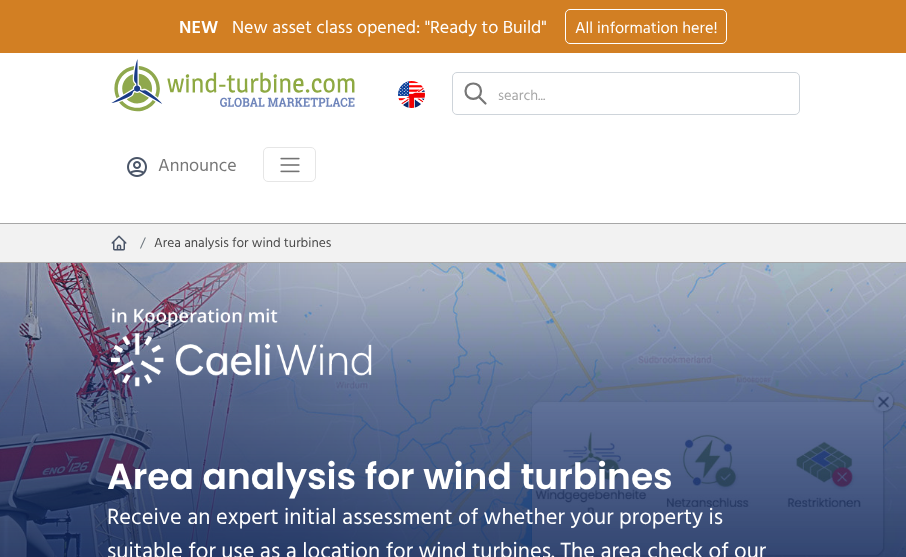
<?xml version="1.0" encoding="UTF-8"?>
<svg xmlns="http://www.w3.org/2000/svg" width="906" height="557">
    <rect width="100%" height="100%" fill="#FFFFFF"/>
    <rect x="0" y="0" width="906" height="53" fill="#D27F23"/>
    <text x="179" y="33" font-family="Hind" font-size="18" font-weight="600" fill="#FFFFFF">NEW</text>
    <text x="232" y="33" font-family="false" font-size="18" fill="#FFFFFF">New asset class opened: "Ready to Build"</text>
    <rect x="565.5" y="9.5" width="161" height="34" rx="4.5" fill="none" stroke="#FFFFFF"/>
    <text x="575" y="33" font-family="false" font-size="16.25" fill="#FFFFFF">All information here!</text>
    <image x="111" y="59" width="244" height="53" href="img_01.png"/>
    <image x="398" y="81" width="27" height="27" href="img_02.png"/>
    <path d="M 485.5 103.5 L 479 97 M 481 91 C 481 101.5 465.5 101.5 465.5 91 C 465.5 81 481 81 481 91 Z" fill="none" stroke="#777777" stroke-width="2.2" stroke-linecap="round" stroke-linejoin="round"/>
    <rect x="452.5" y="72.5" width="347" height="42" rx="4.5" fill="none" stroke="#CED4DA"/>
    <text x="498" y="100" font-family="false" font-size="14.5" fill="#A7A7A7">search...</text>
    <image x="127" y="157" width="20" height="20" href="img_03.png"/>
    <text x="158" y="171" font-family="false" font-size="18" fill="#777777">Announce</text>
    <rect x="263.5" y="147.5" width="52" height="34" rx="4.5" fill="none" stroke="#E6E6E6"/>
    <image x="280" y="157" width="20" height="16" href="img_04.png"/>
    <rect x="0" y="224" width="906" height="38" fill="#F2F2F2"/>
    <rect x="0" y="223" width="906" height="1" fill="#A7A7A7"/>
    <rect x="0" y="262" width="906" height="1" fill="#A7A7A7"/>
    <image x="111" y="235" width="16" height="16" href="img_05.png"/>
    <text x="140" y="247" font-family="false" font-size="13.5" fill="#6C757D">/</text>
    <text x="154" y="247" font-family="false" font-size="13.5" fill="#4A4A4A">Area analysis for wind turbines</text>
    <image x="0" y="263" width="906" height="294" href="img_06.png"/>
    <image x="0" y="263" width="906" height="294" href="img_07.png"/>
    <image x="111" y="308" width="261" height="79" href="img_08.png"/>
    <text x="107" y="489" font-family="Poppins" font-size="36" font-weight="600" fill="#FFFFFF">Area analysis for wind turbines</text>
    <text font-family="false" font-size="22.5" fill="#FFFFFF">
        <tspan x="107" y="524">Receive an expert initial assessment of whether your property is</tspan>
        <tspan x="107" y="558">suitable for use as a location for wind turbines. The area check of our</tspan>
    </text>
</svg>
